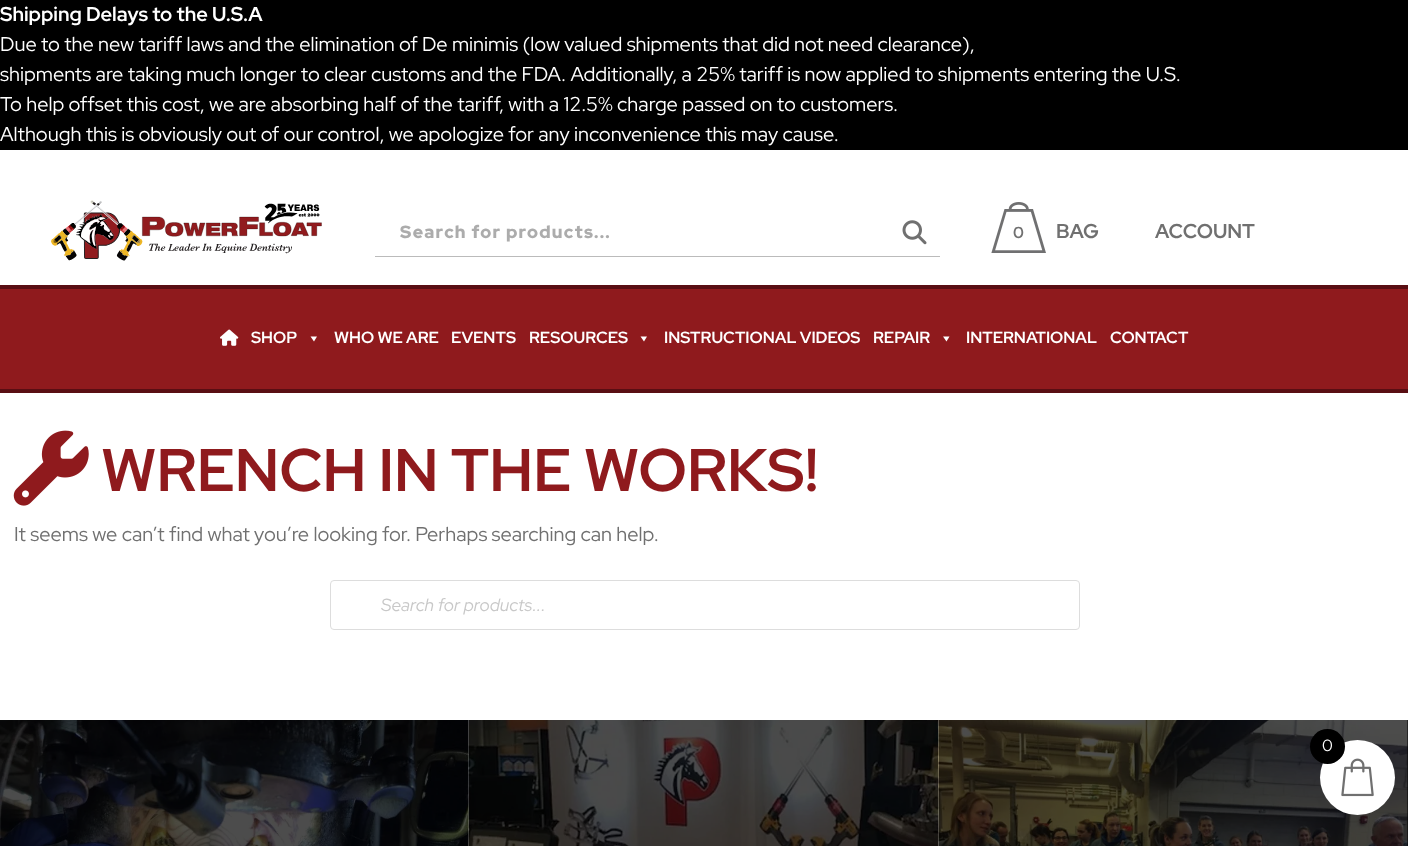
<?xml version="1.0" encoding="UTF-8"?>
<svg xmlns="http://www.w3.org/2000/svg" width="1408" height="846">
    <rect width="100%" height="100%" fill="#FFFFFF"/>
    <rect x="0" y="0" width="1408" height="150" fill="#000000"/>
    <text x="0" y="21" font-family="Red Hat Display" font-size="20" font-weight="700" fill="#FFFFFF">Shipping Delays to the U.S.A</text>
    <text font-family="Red Hat Display" font-size="20" fill="#FFFFFF">
        <tspan x="0" y="51">Due to the new tariff laws and the elimination of De minimis (low valued shipments that did not need clearance),</tspan>
        <tspan x="0" y="81">shipments are taking much longer to clear customs and the FDA. Additionally, a 25% tariff is now applied to shipments entering the U.S.</tspan>
        <tspan x="0" y="111">To help offset this cost, we are absorbing half of the tariff, with a 12.5% charge passed on to customers.</tspan>
        <tspan x="0" y="141">Although this is obviously out of our control, we apologize for any inconvenience this may cause.</tspan>
    </text>
    <image x="51" y="200" width="271" height="61" href="img_01.png"/>
    <rect x="375" y="256" width="565" height="1" fill="#BBBBBB"/>
    <text x="400" y="238" font-family="Red Hat Display" font-size="17.5" font-weight="900" letter-spacing="1.25" fill="#ACACAC">Search for products...</text>
    <image x="902" y="220" width="25" height="25" href="img_02.png"/>
    <image x="991" y="202" width="55" height="51" href="img_03.png"/>
    <text x="1013" y="238" font-family="Red Hat Display" font-size="16" font-weight="700" fill="#707070">0</text>
    <text x="1056" y="238" font-family="Red Hat Display" font-size="20" font-weight="700" fill="#707070">BAG</text>
    <text x="1155" y="238" font-family="Red Hat Display" font-size="20" font-weight="700" fill="#707070">ACCOUNT</text>
    <rect x="0" y="289" width="1408" height="100" fill="#8F1A1D"/>
    <rect x="0" y="285" width="1408" height="4" fill="#590E13"/>
    <rect x="0" y="389" width="1408" height="4" fill="#590E13"/>
    <image x="220" y="329" width="19" height="17" href="img_04.png"/>
    <text x="251" y="343" font-family="Red Hat Display" font-size="16.25" font-weight="700" fill="#FFFFFF">SHOP</text>
    <path d="M 317 336.5 L 314 341.5 L 310.5 336.5 Z" fill="#FFFFFF"/>
    <text x="334" y="343" font-family="Red Hat Display" font-size="16.25" font-weight="700" fill="#FFFFFF">WHO WE ARE</text>
    <text x="451" y="343" font-family="Red Hat Display" font-size="16.25" font-weight="700" fill="#FFFFFF">EVENTS</text>
    <text x="529" y="343" font-family="Red Hat Display" font-size="16.25" font-weight="700" fill="#FFFFFF">RESOURCES</text>
    <path d="M 647 336.5 L 644 341.5 L 640.5 336.5 Z" fill="#FFFFFF"/>
    <text x="664" y="343" font-family="Red Hat Display" font-size="16.25" font-weight="700" fill="#FFFFFF">INSTRUCTIONAL VIDEOS</text>
    <text x="873" y="343" font-family="Red Hat Display" font-size="16.25" font-weight="700" fill="#FFFFFF">REPAIR</text>
    <path d="M 949.5 336.5 L 946.5 341.5 L 943 336.5 Z" fill="#FFFFFF"/>
    <text x="966" y="343" font-family="Red Hat Display" font-size="16.25" font-weight="700" fill="#FFFFFF">INTERNATIONAL</text>
    <text x="1110" y="343" font-family="Red Hat Display" font-size="16.25" font-weight="700" fill="#FFFFFF">CONTACT</text>
    <image x="13" y="430" width="76" height="76" href="img_05.png"/>
    <text x="101" y="491" font-family="Red Hat Display" font-size="60" font-weight="700" fill="#8F1A1D">WRENCH IN THE WORKS!</text>
    <text x="14" y="541" font-family="Red Hat Display" font-size="20" fill="#707070">It seems we can’t find what you’re looking for. Perhaps searching can help.</text>
    <rect x="330.5" y="580.5" width="749" height="49" rx="3.5" fill="none" stroke="#DDDDDD"/>
    <text x="381" y="611" font-family="Red Hat Display" font-size="17.5" font-style="italic" fill="#C8C8C8">Search for products...</text>
    <rect x="1407" y="720" width="1" height="126" fill="#000000"/>
    <image x="0" y="720" width="469" height="126" href="img_06.png"/>
    <image x="468" y="720" width="471" height="126" href="img_07.png"/>
    <image x="938" y="720" width="470" height="126" href="img_08.png"/>
    <circle cx="1357.5" cy="777.5" r="37.5" fill="#FFFFFF"/>
    <image x="1341" y="758" width="33" height="39" href="img_09.png"/>
    <circle cx="1327.5" cy="746.5" r="17.5" fill="#000000"/>
    <text x="1322" y="751" font-family="Red Hat Display" font-size="16.25" fill="#FFFFFF">0</text>
</svg>
